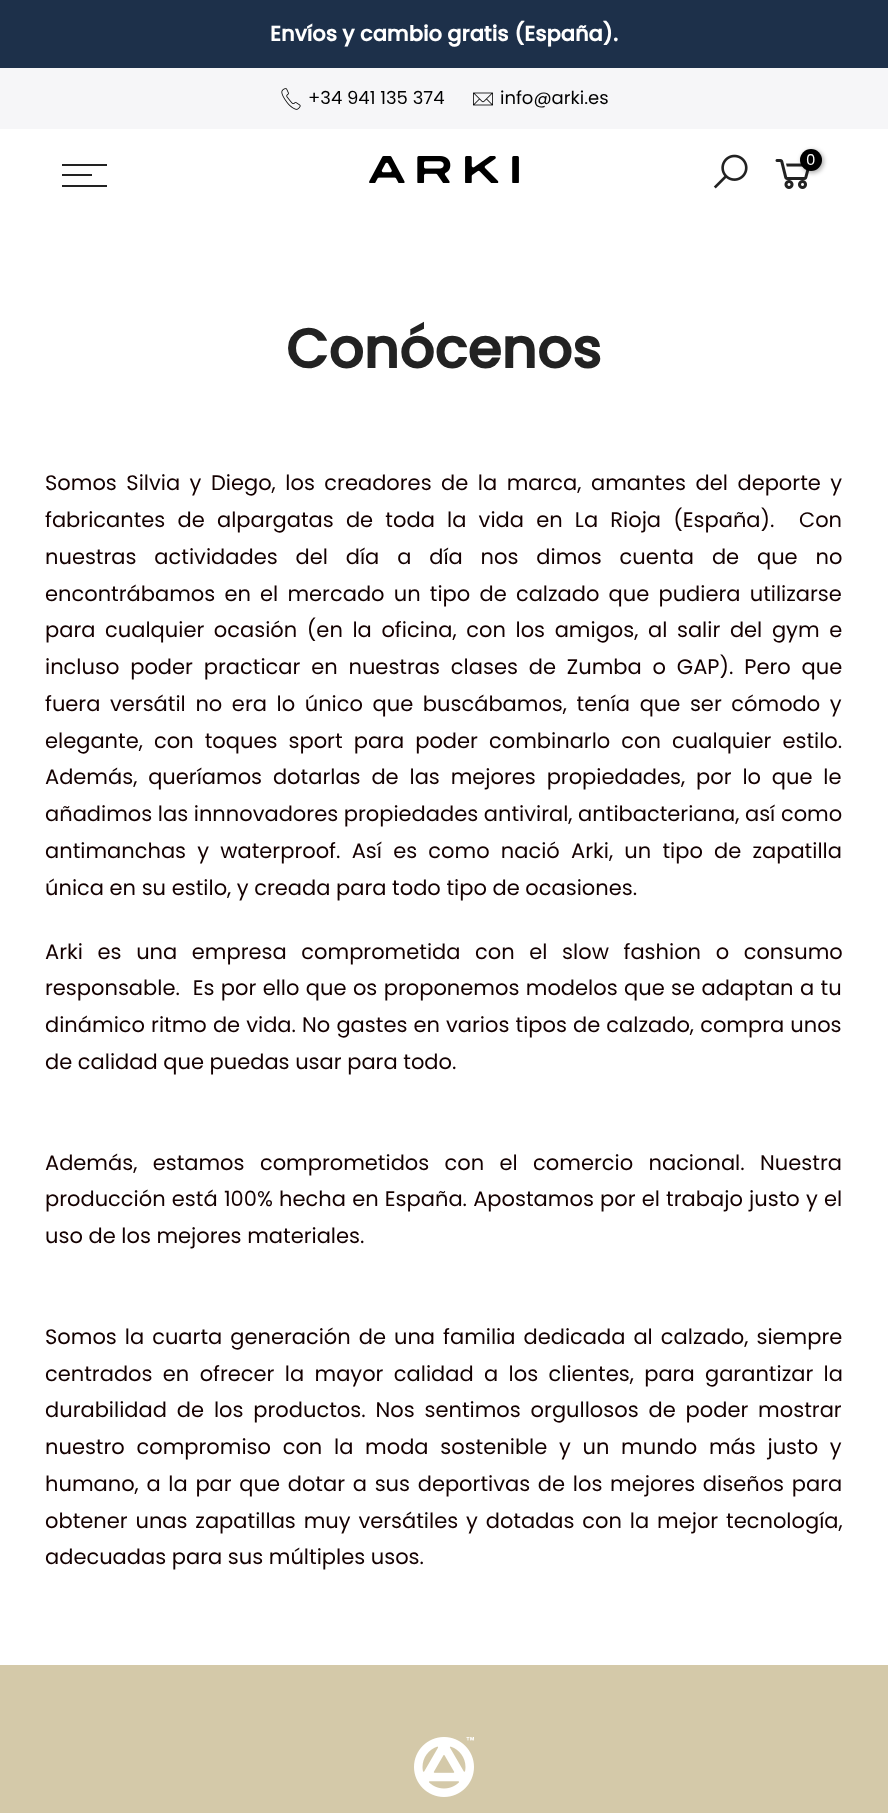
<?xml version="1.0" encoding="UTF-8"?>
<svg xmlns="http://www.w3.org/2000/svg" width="888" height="1813">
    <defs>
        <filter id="blur1" x="-50%" y="-200%" width="200%" height="500%"><feGaussianBlur stdDeviation="2"/></filter>
    </defs>
    <rect width="100%" height="100%" fill="#FFFFFF"/>
    <rect x="0" y="0" width="888" height="68" fill="#1D304A"/>
    <text x="270" y="41" font-family="Poppins" font-size="21" font-weight="700" fill="#FFFFFF">Envíos y cambio gratis (España).</text>
    <rect x="0" y="68" width="888" height="61" fill="#F6F6F8"/>
    <image x="281" y="88" width="20" height="22" href="img_01.png"/>
    <text x="308" y="104" font-family="Poppins" font-size="18" fill="#000000">+34 941 135 374</text>
    <image x="473" y="92" width="20" height="14" href="img_02.png"/>
    <text x="500" y="104" font-family="Poppins" font-size="18" fill="#000000">info@arki.es</text>
    <rect x="62" y="164" width="45" height="2" fill="#222222"/>
    <rect x="62" y="174" width="30" height="2" fill="#222222"/>
    <rect x="62" y="185" width="45" height="2" fill="#222222"/>
    <image x="369" y="156" width="150" height="27" href="img_03.png"/>
    <image x="713" y="154" width="35" height="35" href="img_04.png"/>
    <image x="775" y="159" width="35" height="30" href="img_05.png"/>
    <rect x="801" y="150" width="23" height="23" rx="11.5" fill="#000000" fill-opacity="0.3" filter="url(#blur1)"/>
    <circle cx="811" cy="160" r="11" fill="#000000"/>
    <text x="806" y="165" font-family="Poppins" font-size="15" fill="#FFFFFF">0</text>
    <text x="286" y="368" font-family="Poppins" font-size="55" font-weight="700" fill="#222222">Conócenos</text>
    <text font-family="Poppins" font-size="21" fill="#140000" xml:space="preserve"><tspan x="45" y="490" word-spacing="3.9">Somos Silvia y Diego, los creadores de la marca, amantes del deporte y</tspan><tspan x="45" y="527" word-spacing="6.6">fabricantes de alpargatas de toda la vida en La Rioja (España).  Con</tspan><tspan x="45" y="564" word-spacing="12.25">nuestras actividades del día a día nos dimos cuenta de que no</tspan><tspan x="45" y="601" word-spacing="3.6">encontrábamos en el mercado un tipo de calzado que pudiera utilizarse</tspan><tspan x="45" y="637" word-spacing="4">para cualquier ocasión (en la oficina, con los amigos, al salir del gym e</tspan><tspan x="45" y="674" word-spacing="5.25">incluso poder practicar en nuestras clases de Zumba o GAP). Pero que</tspan><tspan x="45" y="711" word-spacing="4">fuera versátil no era lo único que buscábamos, tenía que ser cómodo y</tspan><tspan x="45" y="748" word-spacing="5.5">elegante, con toques sport para poder combinarlo con cualquier estilo.</tspan><tspan x="45" y="784" word-spacing="5.25">Además, queríamos dotarlas de las mejores propiedades, por lo que le</tspan><tspan x="45" y="821">añadimos las innnovadores propiedades antiviral, antibacteriana, así como</tspan><tspan x="45" y="858" word-spacing="5.6">antimanchas y waterproof. Así es como nació Arki, un tipo de zapatilla</tspan><tspan x="45" y="895">única en su estilo, y creada para todo tipo de ocasiones.</tspan></text>
    <text font-family="Poppins" font-size="21" fill="#140000" xml:space="preserve"><tspan x="45" y="959" word-spacing="9">Arki es una empresa comprometida con el slow fashion o consumo</tspan><tspan x="45" y="995" word-spacing="0.8">responsable.  Es por ello que os proponemos modelos que se adaptan a tu</tspan><tspan x="45" y="1032" word-spacing="0.5">dinámico ritmo de vida. No gastes en varios tipos de calzado, compra unos</tspan><tspan x="45" y="1069">de calidad que puedas usar para todo.</tspan></text>
    <text font-family="Poppins" font-size="21" fill="#140000">
        <tspan x="45" y="1170" word-spacing="9.75">Además, estamos comprometidos con el comercio nacional. Nuestra</tspan>
        <tspan x="45" y="1206" word-spacing="0.6">producción está 100% hecha en España. Apostamos por el trabajo justo y el</tspan>
        <tspan x="45" y="1243">uso de los mejores materiales.</tspan>
    </text>
    <text font-family="Poppins" font-size="21" fill="#140000">
        <tspan x="45" y="1344" word-spacing="2.4">Somos la cuarta generación de una familia dedicada al calzado, siempre</tspan>
        <tspan x="45" y="1381" word-spacing="4.75">centrados en ofrecer la mayor calidad a los clientes, para garantizar la</tspan>
        <tspan x="45" y="1417" word-spacing="4.25">durabilidad de los productos. Nos sentimos orgullosos de poder mostrar</tspan>
        <tspan x="45" y="1454" word-spacing="6.1">nuestro compromiso con la moda sostenible y un mundo más justo y</tspan>
        <tspan x="45" y="1491" word-spacing="2.1">humano, a la par que dotar a sus deportivas de los mejores diseños para</tspan>
        <tspan x="45" y="1528" word-spacing="2.25">obtener unas zapatillas muy versátiles y dotadas con la mejor tecnología,</tspan>
        <tspan x="45" y="1564">adecuadas para sus múltiples usos.</tspan>
    </text>
    <rect x="0" y="1665" width="888" height="148" fill="#D4C9A9"/>
    <image x="414" y="1737" width="60" height="60" href="img_06.png"/>
</svg>
